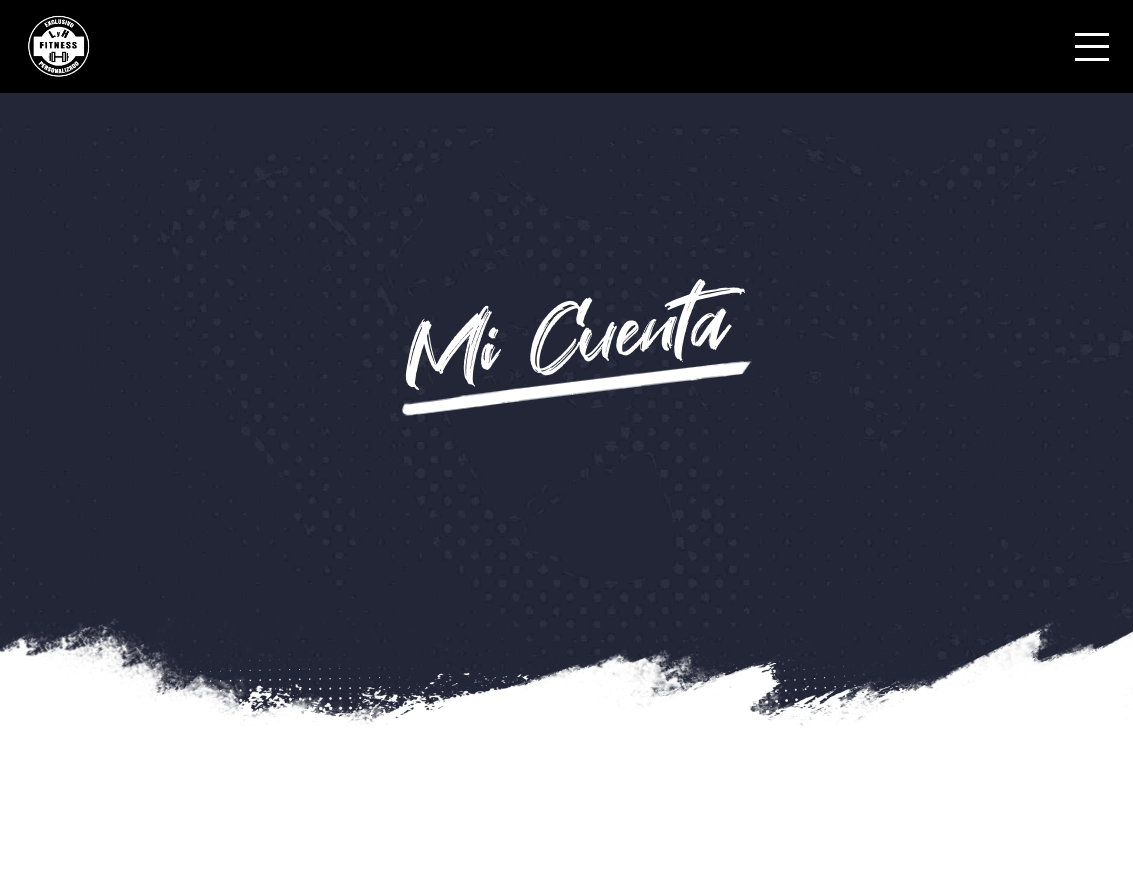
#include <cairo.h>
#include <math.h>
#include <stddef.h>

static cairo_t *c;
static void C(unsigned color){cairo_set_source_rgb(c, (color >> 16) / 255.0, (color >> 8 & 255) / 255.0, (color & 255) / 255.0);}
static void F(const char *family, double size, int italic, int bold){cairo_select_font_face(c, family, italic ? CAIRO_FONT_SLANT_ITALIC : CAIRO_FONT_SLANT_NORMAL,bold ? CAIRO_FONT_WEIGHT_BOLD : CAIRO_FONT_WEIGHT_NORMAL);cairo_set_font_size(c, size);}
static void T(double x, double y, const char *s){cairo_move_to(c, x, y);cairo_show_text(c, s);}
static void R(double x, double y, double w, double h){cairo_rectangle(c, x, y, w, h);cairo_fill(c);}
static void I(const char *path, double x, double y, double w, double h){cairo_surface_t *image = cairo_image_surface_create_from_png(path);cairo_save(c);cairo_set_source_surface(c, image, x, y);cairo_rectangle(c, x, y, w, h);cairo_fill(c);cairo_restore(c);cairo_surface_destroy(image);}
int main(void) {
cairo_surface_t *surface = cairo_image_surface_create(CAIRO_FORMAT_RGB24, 1133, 875);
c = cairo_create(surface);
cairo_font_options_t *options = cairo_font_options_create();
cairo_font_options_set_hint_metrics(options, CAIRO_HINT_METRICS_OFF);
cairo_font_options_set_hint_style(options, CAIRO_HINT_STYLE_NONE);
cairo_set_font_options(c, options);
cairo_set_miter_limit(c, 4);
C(0xffffff);
cairo_paint(c);
C(0x000000);
R(0,0,1133,93);
I("1.png",28,15,62,62);
C(0xffffff);
R(1075,33,34,3);
R(1075,45,34,3);
R(1075,58,34,3);
I("2.png",0,93,1133,634);
I("4.png",402,381,172,35);
I("3.png",570,359,182,36);
F("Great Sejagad",95,0,0);
cairo_save(c);
cairo_translate(c,407,388);
cairo_rotate(c,-6 * M_PI / 180);
T(0,0,"Mi Cuenta");
cairo_restore(c);
I("5.png",0,608,1133,119);
cairo_surface_write_to_png(surface, "o.png");
cairo_font_options_destroy(options);
cairo_destroy(c);
cairo_surface_destroy(surface);
return 0;
}
